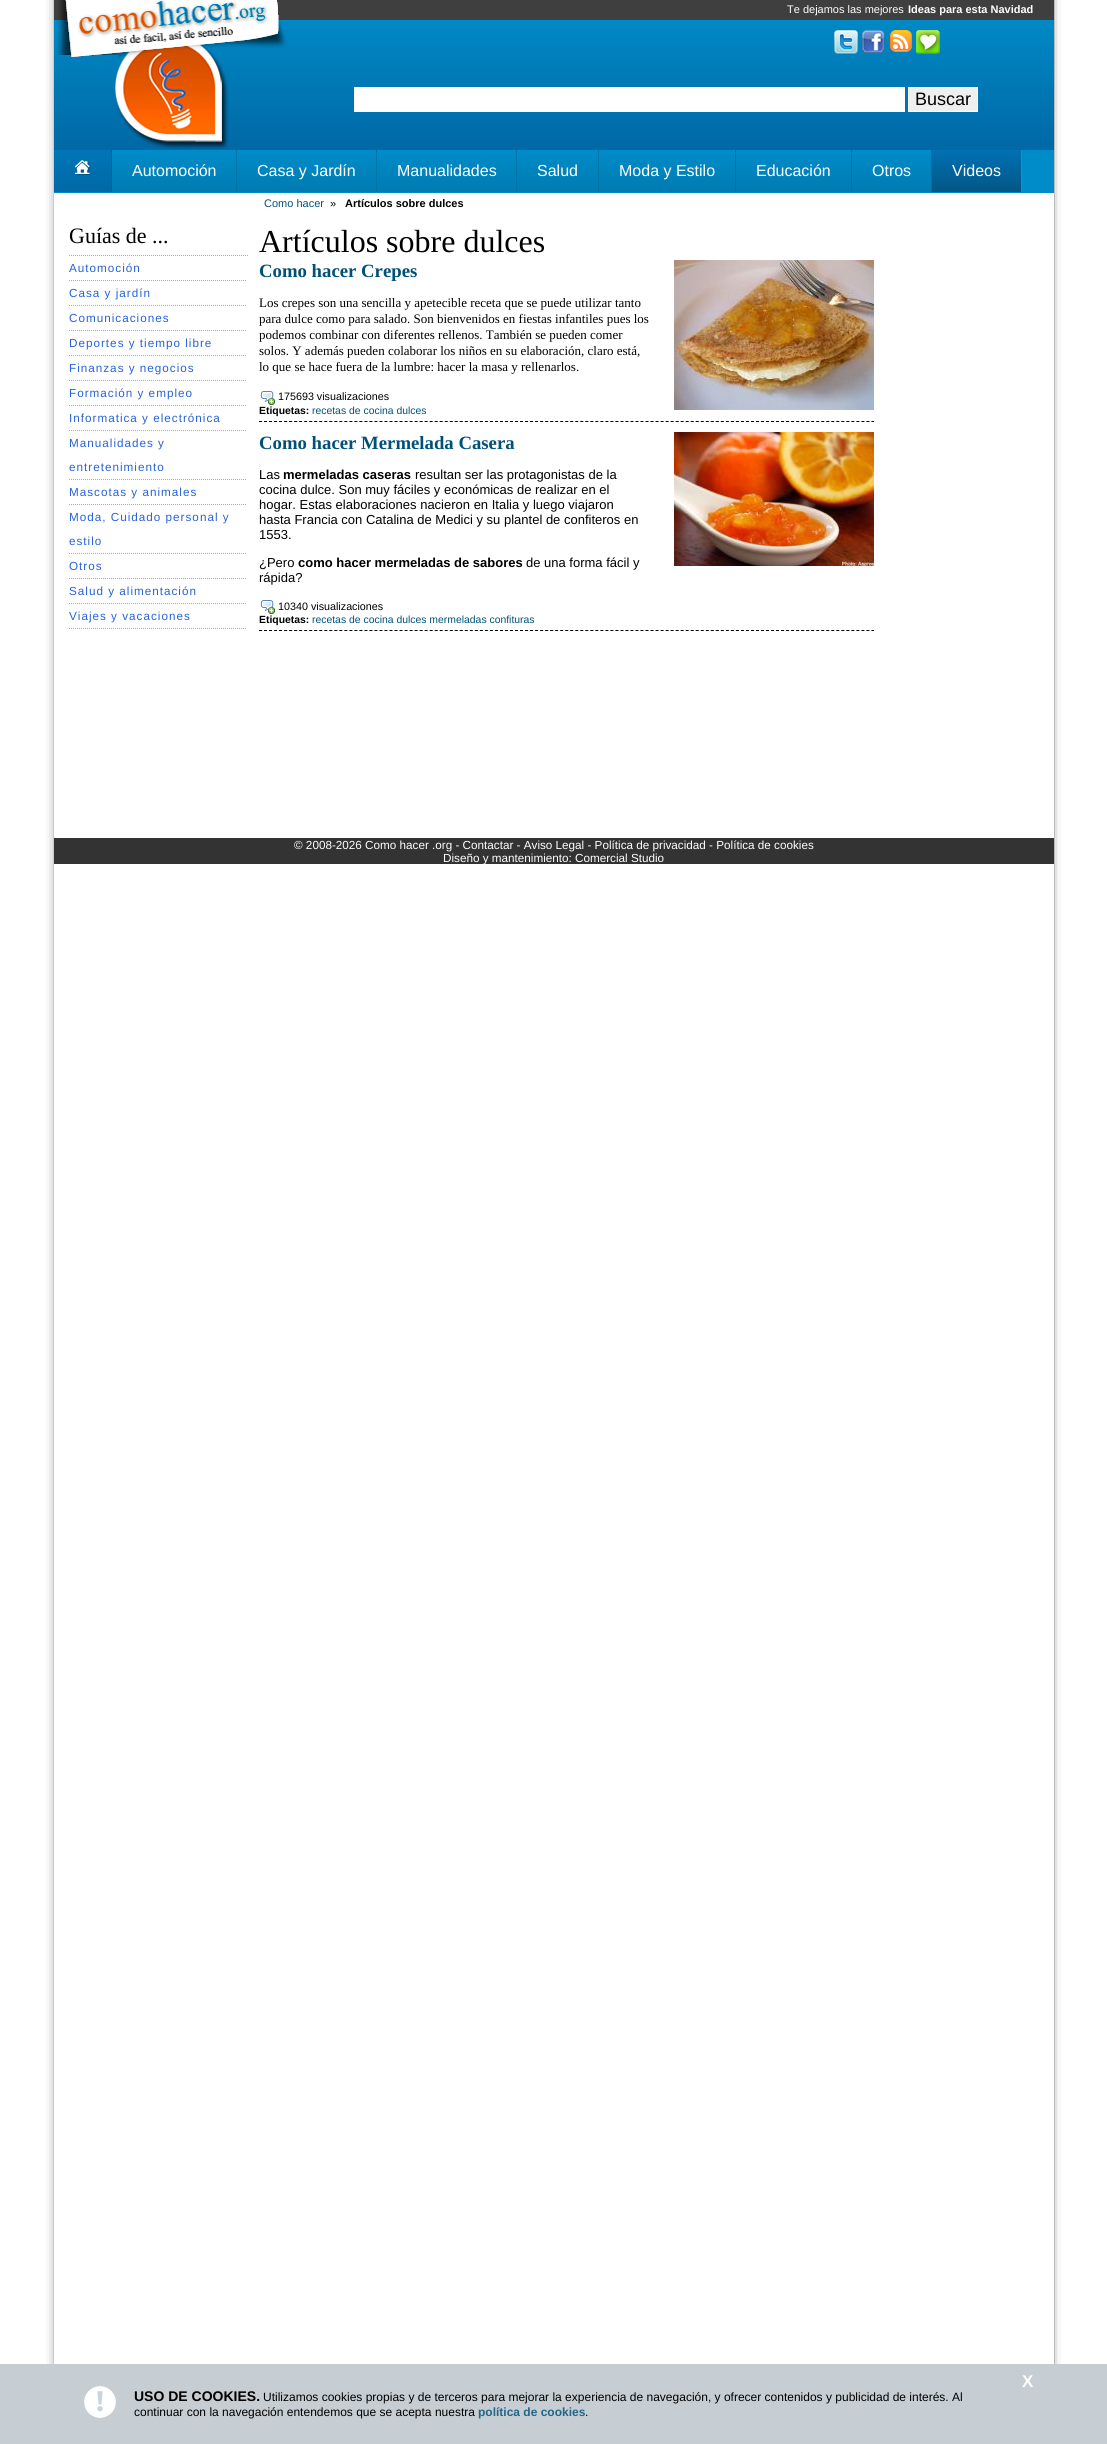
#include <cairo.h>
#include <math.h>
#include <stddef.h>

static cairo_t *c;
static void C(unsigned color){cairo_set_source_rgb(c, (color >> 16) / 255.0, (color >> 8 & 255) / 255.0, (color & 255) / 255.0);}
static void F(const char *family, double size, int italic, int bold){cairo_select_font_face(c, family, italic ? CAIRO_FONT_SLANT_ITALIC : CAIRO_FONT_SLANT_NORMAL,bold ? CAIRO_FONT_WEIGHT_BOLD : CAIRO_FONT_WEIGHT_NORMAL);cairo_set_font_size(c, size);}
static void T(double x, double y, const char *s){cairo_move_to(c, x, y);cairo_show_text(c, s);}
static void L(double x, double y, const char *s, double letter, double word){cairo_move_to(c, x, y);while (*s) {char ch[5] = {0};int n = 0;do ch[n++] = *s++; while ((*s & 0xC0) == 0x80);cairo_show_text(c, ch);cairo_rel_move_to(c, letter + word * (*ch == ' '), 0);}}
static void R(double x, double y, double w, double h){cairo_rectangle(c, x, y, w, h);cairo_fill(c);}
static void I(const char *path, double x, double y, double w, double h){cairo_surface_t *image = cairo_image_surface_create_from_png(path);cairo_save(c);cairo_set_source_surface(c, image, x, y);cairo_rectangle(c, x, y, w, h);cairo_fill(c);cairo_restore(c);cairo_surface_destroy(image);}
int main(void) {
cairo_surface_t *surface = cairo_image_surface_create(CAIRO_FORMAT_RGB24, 1107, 2444);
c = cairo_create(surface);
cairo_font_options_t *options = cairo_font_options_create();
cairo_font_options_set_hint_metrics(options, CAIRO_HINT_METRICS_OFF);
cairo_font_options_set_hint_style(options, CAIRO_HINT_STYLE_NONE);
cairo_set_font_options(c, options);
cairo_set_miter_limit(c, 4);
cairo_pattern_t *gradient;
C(0xffffff);
cairo_paint(c);
I("1.png",46,0,1015,2364);
C(0x3f3f3f);
R(54,0,1000,20);
F("Liberation Sans",11,0,0);
C(0xffffff);
T(787,13,"Te dejamos las mejores");
F("Liberation Sans",11,0,1);
T(908,13,"Ideas para esta Navidad");
gradient = cairo_pattern_create_linear(54,20,54,150);
cairo_pattern_add_color_stop_rgba(gradient,0,0,0.537,0.773,1);
cairo_pattern_add_color_stop_rgba(gradient,1,0,0.408,0.647,1);
cairo_set_source(c,gradient);
cairo_pattern_destroy(gradient);
R(54,20,1000,130);
I("7.png",115,44,114,105);
I("2.png",57,0,230,59);
I("3.png",834,30,24,24);
I("4.png",861,30,24,24);
I("5.png",890,30,22,22);
I("6.png",916,30,24,24);
C(0xffffff);
R(354,87,551,25);
C(0xefefef);
cairo_rectangle(c,908.5,87.5,69,24);
cairo_fill_preserve(c);
C(0xffffff);
cairo_set_line_width(c,1);
cairo_stroke(c);
F("Liberation Sans",18,0,0);
C(0x000000);
T(915,105,"Buscar");
C(0x008cc9);
R(54,150,1000,43);
gradient = cairo_pattern_create_linear(54,150,54,192);
cairo_pattern_add_color_stop_rgba(gradient,0,0,0.459,0.722,1);
cairo_pattern_add_color_stop_rgba(gradient,1,0,0.408,0.647,1);
cairo_set_source(c,gradient);
cairo_pattern_destroy(gradient);
R(54,150,57,42);
C(0x00639d);
R(111,150,1,42);
I("8.png",75,160,16,15);
gradient = cairo_pattern_create_linear(112,150,112,192);
cairo_pattern_add_color_stop_rgba(gradient,0,0,0.549,0.788,1);
cairo_pattern_add_color_stop_rgba(gradient,1,0,0.482,0.694,1);
cairo_set_source(c,gradient);
cairo_pattern_destroy(gradient);
R(112,154,124,38);
C(0x0073a6);
R(236,150,1,42);
F("Liberation Sans",16,0,0);
C(0xffffff);
T(132,176,"Automoción");
gradient = cairo_pattern_create_linear(237,150,237,192);
cairo_pattern_add_color_stop_rgba(gradient,0,0,0.549,0.788,1);
cairo_pattern_add_color_stop_rgba(gradient,1,0,0.482,0.694,1);
cairo_set_source(c,gradient);
cairo_pattern_destroy(gradient);
R(237,154,139,38);
C(0x0073a6);
R(376,150,1,42);
C(0xffffff);
T(257,176,"Casa y Jardín");
gradient = cairo_pattern_create_linear(377,150,377,192);
cairo_pattern_add_color_stop_rgba(gradient,0,0,0.549,0.788,1);
cairo_pattern_add_color_stop_rgba(gradient,1,0,0.482,0.694,1);
cairo_set_source(c,gradient);
cairo_pattern_destroy(gradient);
R(377,154,139,38);
C(0x0073a6);
R(516,150,1,42);
C(0xffffff);
T(397,176,"Manualidades");
gradient = cairo_pattern_create_linear(517,150,517,192);
cairo_pattern_add_color_stop_rgba(gradient,0,0,0.549,0.788,1);
cairo_pattern_add_color_stop_rgba(gradient,1,0,0.482,0.694,1);
cairo_set_source(c,gradient);
cairo_pattern_destroy(gradient);
R(517,154,81,38);
C(0x0073a6);
R(598,150,1,42);
C(0xffffff);
T(537,176,"Salud");
gradient = cairo_pattern_create_linear(599,150,599,192);
cairo_pattern_add_color_stop_rgba(gradient,0,0,0.549,0.788,1);
cairo_pattern_add_color_stop_rgba(gradient,1,0,0.482,0.694,1);
cairo_set_source(c,gradient);
cairo_pattern_destroy(gradient);
R(599,154,136,38);
C(0x0073a6);
R(735,150,1,42);
C(0xffffff);
T(619,176,"Moda y Estilo");
gradient = cairo_pattern_create_linear(736,150,736,192);
cairo_pattern_add_color_stop_rgba(gradient,0,0,0.549,0.788,1);
cairo_pattern_add_color_stop_rgba(gradient,1,0,0.482,0.694,1);
cairo_set_source(c,gradient);
cairo_pattern_destroy(gradient);
R(736,154,115,38);
C(0x0073a6);
R(851,150,1,42);
C(0xffffff);
T(756,176,"Educación");
gradient = cairo_pattern_create_linear(852,150,852,192);
cairo_pattern_add_color_stop_rgba(gradient,0,0,0.549,0.788,1);
cairo_pattern_add_color_stop_rgba(gradient,1,0,0.482,0.694,1);
cairo_set_source(c,gradient);
cairo_pattern_destroy(gradient);
R(852,154,79,38);
C(0x0073a6);
R(931,150,1,42);
C(0xffffff);
T(872,176,"Otros");
gradient = cairo_pattern_create_linear(932,150,932,192);
cairo_pattern_add_color_stop_rgba(gradient,0,0.004,0.443,0.702,1);
cairo_pattern_add_color_stop_rgba(gradient,1,0.008,0.337,0.522,1);
cairo_set_source(c,gradient);
cairo_pattern_destroy(gradient);
R(932,150,89,42);
C(0x4380a2);
R(1021,150,1,42);
C(0xffffff);
T(952,176,"Videos");
F("Liberation Sans",11,0,0);
C(0x005177);
T(264,207,"Como hacer");
C(0x000000);
T(330,207,"»");
F("Liberation Sans",11,0,1);
T(345,207,"Artículos sobre dulces");
cairo_new_path(c);
cairo_move_to(c,69,255.5);
cairo_line_to(c,249,255.5);
C(0xacacac);
cairo_set_dash(c,(double[]){1,1},2,0);
cairo_stroke(c);
F("Liberation Serif",22,0,0);
C(0x000000);
T(69,243,"Guías de ...");
cairo_new_path(c);
cairo_move_to(c,69,280.5);
cairo_line_to(c,247,280.5);
C(0xacacac);
cairo_stroke(c);
F("Liberation Sans",11.7,0,0);
C(0x2662da);
L(69,272,"Automoción",1,0);
cairo_new_path(c);
cairo_move_to(c,69,305.5);
cairo_line_to(c,247,305.5);
C(0xacacac);
cairo_stroke(c);
C(0x2662da);
L(69,297,"Casa y jardín",1,0);
cairo_new_path(c);
cairo_move_to(c,69,330.5);
cairo_line_to(c,247,330.5);
C(0xacacac);
cairo_stroke(c);
C(0x2662da);
L(69,322,"Comunicaciones",1,0);
cairo_new_path(c);
cairo_move_to(c,69,355.5);
cairo_line_to(c,247,355.5);
C(0xacacac);
cairo_stroke(c);
C(0x2662da);
L(69,347,"Deportes y tiempo libre",1,0);
cairo_new_path(c);
cairo_move_to(c,69,380.5);
cairo_line_to(c,247,380.5);
C(0xacacac);
cairo_stroke(c);
C(0x2662da);
L(69,372,"Finanzas y negocios",1,0);
cairo_new_path(c);
cairo_move_to(c,69,405.5);
cairo_line_to(c,247,405.5);
C(0xacacac);
cairo_stroke(c);
C(0x2662da);
L(69,397,"Formación y empleo",1,0);
cairo_new_path(c);
cairo_move_to(c,69,430.5);
cairo_line_to(c,247,430.5);
C(0xacacac);
cairo_stroke(c);
C(0x2662da);
L(69,422,"Informatica y electrónica",1,0);
cairo_new_path(c);
cairo_move_to(c,69,479.5);
cairo_line_to(c,247,479.5);
C(0xacacac);
cairo_stroke(c);
C(0x2662da);
L(69,447,"Manualidades y",1,0);
L(69,471,"entretenimiento",1,0);
cairo_new_path(c);
cairo_move_to(c,69,504.5);
cairo_line_to(c,247,504.5);
C(0xacacac);
cairo_stroke(c);
C(0x2662da);
L(69,496,"Mascotas y animales",1,0);
cairo_new_path(c);
cairo_move_to(c,69,553.5);
cairo_line_to(c,247,553.5);
C(0xacacac);
cairo_stroke(c);
C(0x2662da);
L(69,521,"Moda, Cuidado personal y",1,0);
L(69,545,"estilo",1,0);
cairo_new_path(c);
cairo_move_to(c,69,578.5);
cairo_line_to(c,247,578.5);
C(0xacacac);
cairo_stroke(c);
C(0x2662da);
L(69,570,"Otros",1,0);
cairo_new_path(c);
cairo_move_to(c,69,603.5);
cairo_line_to(c,247,603.5);
C(0xacacac);
cairo_stroke(c);
C(0x2662da);
L(69,595,"Salud y alimentación",1,0);
cairo_new_path(c);
cairo_move_to(c,69,628.5);
cairo_line_to(c,247,628.5);
C(0xacacac);
cairo_stroke(c);
C(0x2662da);
L(69,620,"Viajes y vacaciones",1,0);
F("Liberation Serif",32,0,0);
C(0x000000);
T(259,252,"Artículos sobre dulces");
cairo_new_path(c);
cairo_move_to(c,259,421.5);
cairo_line_to(c,874,421.5);
cairo_set_dash(c,(double[]){3,2.02},2,0);
cairo_stroke(c);
F("Liberation Serif",18.75,0,1);
C(0x005177);
T(259,277,"Como hacer Crepes");
F("Liberation Serif",13,0,0);
C(0x000000);
T(259,307,"Los crepes son una sencilla y apetecible receta que se puede utilizar tanto");
T(259,323,"para dulce como para salado. Son bienvenidos en fiestas infantiles pues los");
T(259,339,"podemos combinar con diferentes rellenos. También se pueden comer");
T(259,355,"solos. Y además pueden colaborar los niños en su elaboración, claro está,");
T(259,371,"lo que se hace fuera de la lumbre: hacer la masa y rellenarlos.");
I("9.png",260,391,15,14);
F("Liberation Sans",10.75,0,0);
T(278,400,"175693 visualizaciones");
F("Liberation Sans",10.4,0,1);
T(259,414,"Etiquetas:");
F("Liberation Sans",10.4,0,0);
C(0x005177);
T(312,414,"recetas de cocina dulces");
I("10.png",674,260,200,150);
cairo_new_path(c);
cairo_move_to(c,259,630.5);
cairo_line_to(c,874,630.5);
C(0x000000);
cairo_stroke(c);
F("Liberation Serif",18.75,0,1);
C(0x005177);
T(259,449,"Como hacer Mermelada Casera");
F("Liberation Sans",13,0,0);
C(0x000000);
T(259,479,"Las");
F("Liberation Sans",13,0,1);
T(283,479,"mermeladas caseras");
F("Liberation Sans",13,0,0);
T(415,479,"resultan ser las protagonistas de la");
T(259,494,"cocina dulce. Son muy fáciles y económicas de realizar en el");
T(259,509,"hogar. Estas elaboraciones nacieron en Italia y luego viajaron");
T(259,524,"hasta Francia con Catalina de Medici y su plantel de confiteros en");
T(259,539,"1553.");
T(259,567,"¿Pero");
F("Liberation Sans",13,0,1);
T(298,567,"como hacer mermeladas de sabores");
F("Liberation Sans",13,0,0);
T(526,567,"de una forma fácil y");
T(259,582,"rápida?");
I("9.png",260,600,15,14);
F("Liberation Sans",10.75,0,0);
T(278,610,"10340 visualizaciones");
F("Liberation Sans",10.4,0,1);
T(259,623,"Etiquetas:");
F("Liberation Sans",10.4,0,0);
C(0x005177);
T(312,623,"recetas de cocina dulces mermeladas confituras");
I("11.png",674,432,200,134);
C(0x333333);
R(54,838,1000,26);
F("Liberation Sans",11.7,0,0);
C(0xffffff);
T(294,849,"© 2008-2026 Como hacer .org - Contactar - Aviso Legal - Política de privacidad - Política de cookies");
T(443,862,"Diseño y mantenimiento: Comercial Studio");
C(0xc7ced3);
R(0,2364,1107,80);
F("Liberation Sans",17,0,1);
C(0xffffff);
T(1022,2387,"X");
I("12.png",84,2386,32,32);
F("Liberation Sans",14,0,1);
C(0x000000);
T(134,2401,"USO DE COOKIES.");
F("Liberation Sans",12,0,0);
T(263,2401,"Utilizamos cookies propias y de terceros para mejorar la experiencia de navegación, y ofrecer contenidos y publicidad de interés. Al");
T(134,2416,"continuar con la navegación entendemos que se acepta nuestra");
F("Liberation Sans",12,0,1);
C(0x226688);
T(478,2416,"política de cookies");
F("Liberation Sans",12,0,0);
C(0x000000);
T(585,2416,".");
cairo_surface_write_to_png(surface, "o.png");
cairo_font_options_destroy(options);
cairo_destroy(c);
cairo_surface_destroy(surface);
return 0;
}
